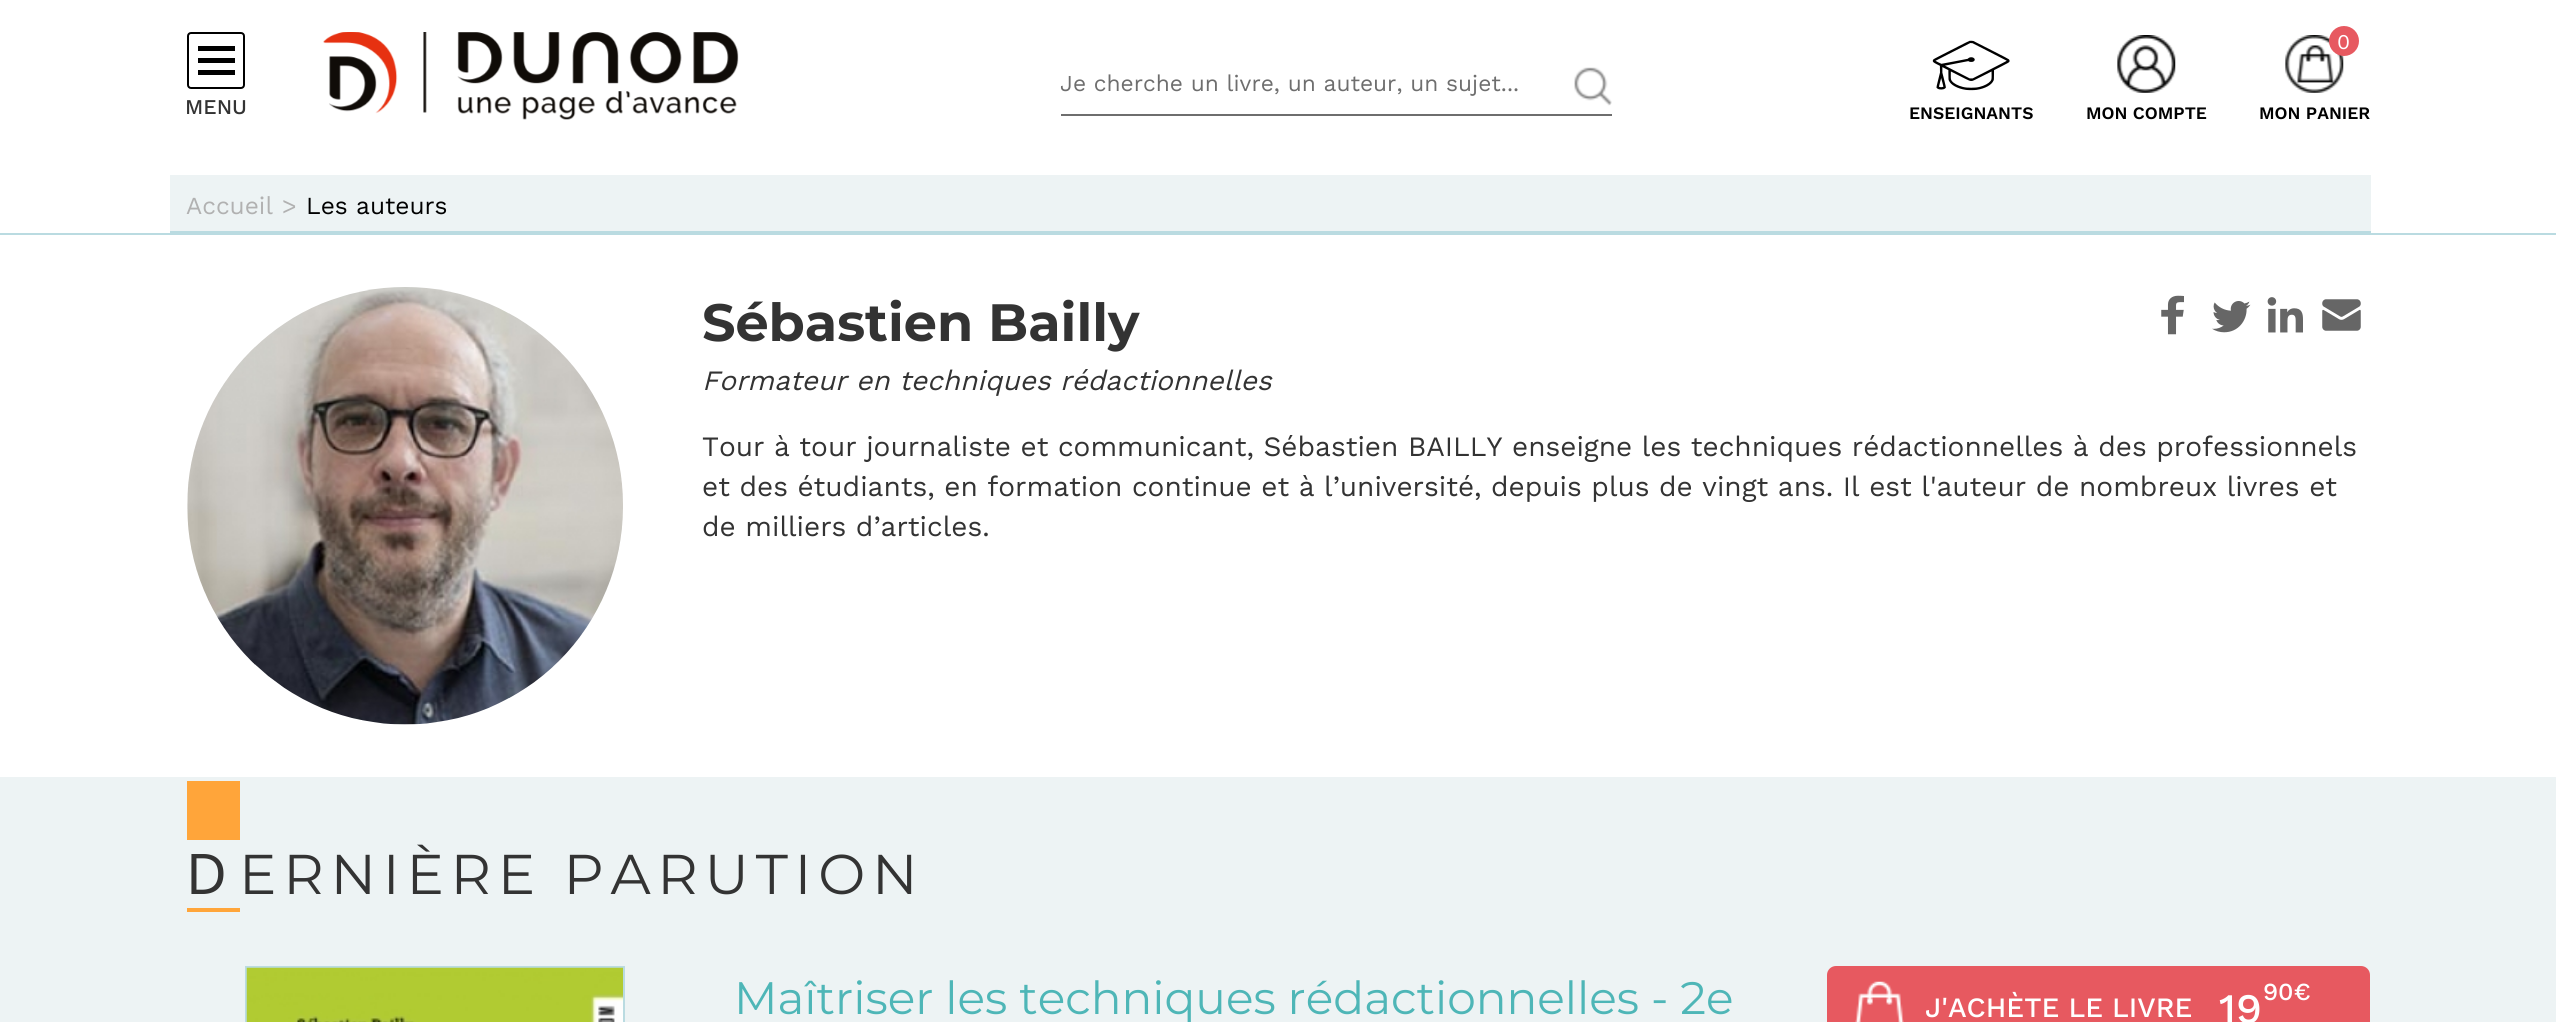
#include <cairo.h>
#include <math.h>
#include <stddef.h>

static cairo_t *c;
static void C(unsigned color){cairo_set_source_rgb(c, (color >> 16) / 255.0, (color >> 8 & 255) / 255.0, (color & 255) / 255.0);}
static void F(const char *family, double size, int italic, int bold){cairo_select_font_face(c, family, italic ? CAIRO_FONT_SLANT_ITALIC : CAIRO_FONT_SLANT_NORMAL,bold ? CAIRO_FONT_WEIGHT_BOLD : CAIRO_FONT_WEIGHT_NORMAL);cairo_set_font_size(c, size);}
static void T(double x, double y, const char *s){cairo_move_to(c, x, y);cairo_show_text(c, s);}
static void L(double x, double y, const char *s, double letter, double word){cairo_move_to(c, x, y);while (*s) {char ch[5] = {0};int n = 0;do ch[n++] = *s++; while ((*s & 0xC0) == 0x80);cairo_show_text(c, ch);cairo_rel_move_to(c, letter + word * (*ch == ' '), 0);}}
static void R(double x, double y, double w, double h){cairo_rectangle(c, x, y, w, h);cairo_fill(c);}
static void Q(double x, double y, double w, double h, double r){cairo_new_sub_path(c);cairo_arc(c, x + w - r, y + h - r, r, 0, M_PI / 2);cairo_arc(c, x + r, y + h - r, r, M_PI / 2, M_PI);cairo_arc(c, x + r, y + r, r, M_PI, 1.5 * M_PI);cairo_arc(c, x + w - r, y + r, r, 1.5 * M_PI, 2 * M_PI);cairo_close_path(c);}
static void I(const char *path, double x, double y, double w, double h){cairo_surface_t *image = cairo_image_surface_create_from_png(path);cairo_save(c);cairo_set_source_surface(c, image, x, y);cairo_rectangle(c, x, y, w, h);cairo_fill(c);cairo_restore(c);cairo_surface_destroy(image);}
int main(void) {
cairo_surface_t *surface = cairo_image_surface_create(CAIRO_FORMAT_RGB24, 2556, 1022);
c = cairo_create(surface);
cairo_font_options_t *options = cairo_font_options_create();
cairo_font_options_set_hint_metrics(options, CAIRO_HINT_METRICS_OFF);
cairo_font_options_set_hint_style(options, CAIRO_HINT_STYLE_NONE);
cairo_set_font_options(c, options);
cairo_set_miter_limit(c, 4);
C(0xffffff);
cairo_paint(c);
Q(188,33,56,55,3);
C(0x000000);
cairo_stroke(c);
R(198,46,37,5);
R(198,58,37,5);
R(198,70,37,5);
F("Work Sans Medium",21,0,0);
C(0x333333);
T(185,114,"MENU");
I("1.png",323,32,416,88);
C(0x6e6e6e);
R(1061,114,551,2);
F("Work Sans",22.75,0,0);
T(1060,91,"Je cherche un livre, un auteur, un sujet...");
I("2.png",1574,67,38,39);
I("3.png",2285,35,59,58);
C(0xe75960);
cairo_arc(c,2344,41,14,0,2 * M_PI);
cairo_fill_preserve(c);
cairo_stroke(c);
F("Work Sans",21,0,0);
C(0xffffff);
T(2337,49,"0");
F("Work Sans SemiBold",17.5,0,0);
C(0x010101);
T(2259,119,"MON PANIER");
I("4.png",1932,40,78,51);
T(1909,119,"ENSEIGNANTS");
I("5.png",2117,35,59,58);
T(2086,119,"MON COMPTE");
C(0xedf3f4);
R(170,175,2201,56);
C(0xbadbe1);
R(170,231,2201,2);
F("Work Sans",24.5,0,0);
C(0xb1b1b1);
T(186,214,"Accueil");
T(282,214,">");
C(0x010101);
T(306,214,"Les auteurs");
C(0xbadbe1);
R(0,233,2556,2);
I("6.png",187,287,436,438);
F("Montserrat",52.5,0,1);
C(0x333333);
T(702,341,"Sébastien Bailly");
I("7.png",2161,295,23,40);
I("8.png",2212,301,39,32);
I("9.png",2267,297,36,36);
I("10.png",2322,299,39,32);
F("Work Sans",28,1,0);
T(702,390,"Formateur en techniques rédactionnelles");
F("Work Sans",28,0,0);
T(702,456,"Tour à tour journaliste et communicant, Sébastien BAILLY enseigne les techniques rédactionnelles à des professionnels");
T(702,496,"et des étudiants, en formation continue et à l’université, depuis plus de vingt ans. Il est l'auteur de nombreux livres et");
T(702,536,"de milliers d’articles.");
C(0xedf3f4);
R(0,777,2556,245);
F("Noto Sans",56,0,0);
C(0x333333);
L(186,894,"D",6.75,0);
C(0xffa53a);
R(187,781,53,59);
R(187,908,53,4);
F("Montserrat",56,0,0);
C(0x333333);
L(239,894,"ERNIÈRE PARUTION",6.75,0);
cairo_rectangle(c,246,967,378,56);
C(0xbadbe1);
cairo_stroke(c);
I("11.png",246,967,377,55);
F("Montserrat",45.5,0,0);
C(0x4eb6b7);
T(734,1014,"Maîtriser les techniques rédactionnelles - 2e");
C(0xe75960);
Q(1827,966,543,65,9);
cairo_fill(c);
I("12.png",1855,981,49,41);
F("Work Sans Medium",28,0,0);
C(0xffffff);
T(1925,1017,"J'ACHÈTE LE LIVRE");
F("Work Sans Medium",24.5,0,0);
T(2263,1000,"90€");
F("Work Sans Medium",42,0,0);
T(2219,1023,"19");
cairo_surface_write_to_png(surface, "o.png");
cairo_font_options_destroy(options);
cairo_destroy(c);
cairo_surface_destroy(surface);
return 0;
}
